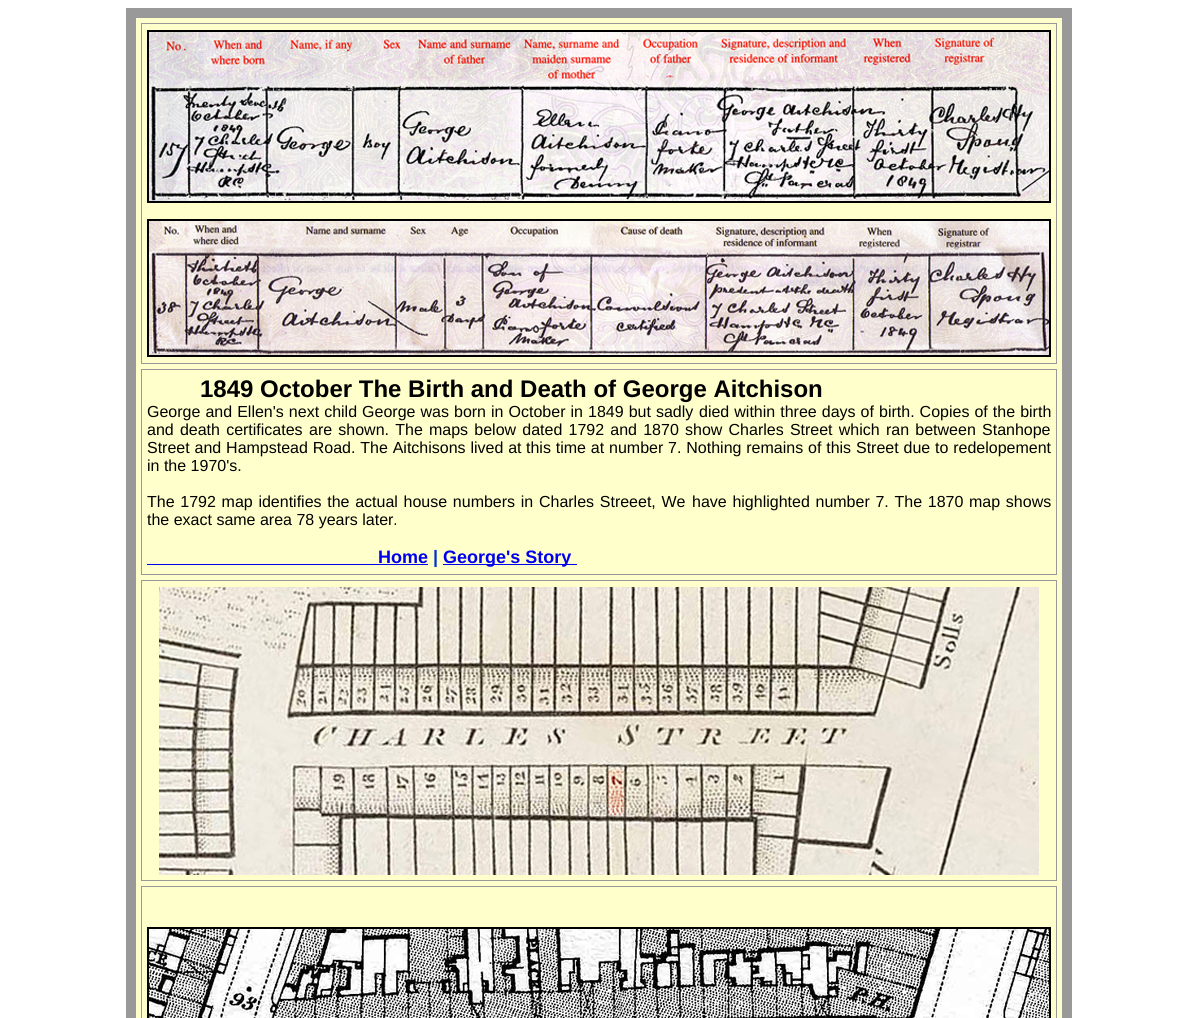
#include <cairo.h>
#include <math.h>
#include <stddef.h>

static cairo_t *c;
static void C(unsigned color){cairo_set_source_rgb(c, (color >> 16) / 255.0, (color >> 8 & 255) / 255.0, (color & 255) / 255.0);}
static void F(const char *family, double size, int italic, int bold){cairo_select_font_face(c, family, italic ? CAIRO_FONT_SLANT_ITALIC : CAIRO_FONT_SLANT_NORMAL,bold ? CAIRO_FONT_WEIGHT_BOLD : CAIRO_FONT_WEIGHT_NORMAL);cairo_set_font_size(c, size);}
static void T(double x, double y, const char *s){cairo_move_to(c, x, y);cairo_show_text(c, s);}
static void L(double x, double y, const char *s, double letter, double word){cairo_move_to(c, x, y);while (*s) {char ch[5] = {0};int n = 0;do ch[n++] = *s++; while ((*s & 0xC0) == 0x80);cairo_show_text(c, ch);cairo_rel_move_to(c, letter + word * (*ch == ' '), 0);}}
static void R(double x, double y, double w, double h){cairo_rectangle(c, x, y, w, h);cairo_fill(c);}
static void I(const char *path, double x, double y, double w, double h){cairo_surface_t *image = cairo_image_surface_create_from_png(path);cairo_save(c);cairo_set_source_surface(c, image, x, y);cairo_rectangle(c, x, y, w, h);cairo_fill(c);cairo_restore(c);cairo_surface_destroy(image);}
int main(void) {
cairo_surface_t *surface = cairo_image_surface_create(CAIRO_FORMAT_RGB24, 1198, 1018);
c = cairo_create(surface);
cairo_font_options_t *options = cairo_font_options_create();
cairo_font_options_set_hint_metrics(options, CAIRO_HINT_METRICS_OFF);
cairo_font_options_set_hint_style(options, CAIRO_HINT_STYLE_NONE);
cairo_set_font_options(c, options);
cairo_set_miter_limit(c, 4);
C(0xffffff);
cairo_paint(c);
C(0xffffcc);
cairo_rectangle(c,131,13,936,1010);
cairo_fill_preserve(c);
C(0x999999);
cairo_set_line_width(c,10);
cairo_stroke(c);
cairo_rectangle(c,141.5,23.5,915,340);
cairo_set_line_width(c,1);
cairo_stroke(c);
cairo_rectangle(c,148,31,902,171);
C(0x000000);
cairo_set_line_width(c,2);
cairo_stroke(c);
I("1.png",149,32,900,169);
cairo_rectangle(c,148,220,902,136);
cairo_stroke(c);
I("2.png",149,221,900,134);
cairo_rectangle(c,141.5,369.5,915,205);
C(0x999999);
cairo_set_line_width(c,1);
cairo_stroke(c);
F("Liberation Sans",24,0,1);
C(0x000000);
T(200,397,"1849 October The Birth and Death of George Aitchison");
F("Liberation Sans",16,0,0);
L(147,417,"George and Ellen's next child George was born in October in 1849 but sadly",0,.6);
L(699,417,"died within three days of birth. Copies of the birth",0,.6);
L(147,435,"and death certificates",0,1.75);
L(309,435,"are shown. The maps below dated 1792 and 1870 show Charles Street which",0,1.75);
L(886,435,"ran between Stanhope",0,1.75);
L(147,453,"Street and Hampstead Road. The Aitchisons lived at",0,.4);
L(526,453,"this time at number 7. Nothing remains of this Street due to redelopement",0,.4);
T(147,471,"in the 1970's.");
L(147,507,"The 1792 map identifies the actual house numbers in Charles Streeet, We",0,1.25);
L(692,507,"have highlighted number 7. The 1870 map shows",0,1.25);
T(147,525,"the exact same area 78 years later.");
F("Liberation Sans",18,0,1);
C(0x0000ee);
T(378,563,"Home");
R(147,564,281,1);
C(0x0033cc);
T(433,563,"|");
C(0x0000ee);
R(443,564,134,1);
T(443,563,"George's Story");
cairo_rectangle(c,141.5,580.5,915,300);
C(0x999999);
cairo_stroke(c);
I("3.png",159,587,880,288);
cairo_rectangle(c,141.5,886.5,915,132);
cairo_stroke(c);
cairo_rectangle(c,148,928,902,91);
C(0x000000);
cairo_set_line_width(c,2);
cairo_stroke(c);
I("4.png",149,929,900,89);
cairo_surface_write_to_png(surface, "o.png");
cairo_font_options_destroy(options);
cairo_destroy(c);
cairo_surface_destroy(surface);
return 0;
}
